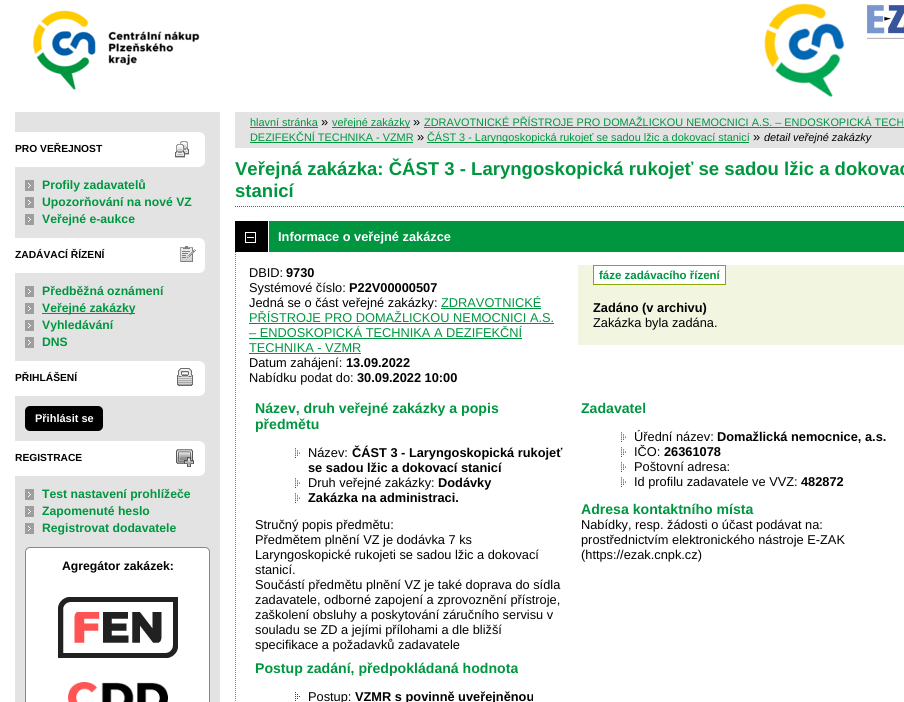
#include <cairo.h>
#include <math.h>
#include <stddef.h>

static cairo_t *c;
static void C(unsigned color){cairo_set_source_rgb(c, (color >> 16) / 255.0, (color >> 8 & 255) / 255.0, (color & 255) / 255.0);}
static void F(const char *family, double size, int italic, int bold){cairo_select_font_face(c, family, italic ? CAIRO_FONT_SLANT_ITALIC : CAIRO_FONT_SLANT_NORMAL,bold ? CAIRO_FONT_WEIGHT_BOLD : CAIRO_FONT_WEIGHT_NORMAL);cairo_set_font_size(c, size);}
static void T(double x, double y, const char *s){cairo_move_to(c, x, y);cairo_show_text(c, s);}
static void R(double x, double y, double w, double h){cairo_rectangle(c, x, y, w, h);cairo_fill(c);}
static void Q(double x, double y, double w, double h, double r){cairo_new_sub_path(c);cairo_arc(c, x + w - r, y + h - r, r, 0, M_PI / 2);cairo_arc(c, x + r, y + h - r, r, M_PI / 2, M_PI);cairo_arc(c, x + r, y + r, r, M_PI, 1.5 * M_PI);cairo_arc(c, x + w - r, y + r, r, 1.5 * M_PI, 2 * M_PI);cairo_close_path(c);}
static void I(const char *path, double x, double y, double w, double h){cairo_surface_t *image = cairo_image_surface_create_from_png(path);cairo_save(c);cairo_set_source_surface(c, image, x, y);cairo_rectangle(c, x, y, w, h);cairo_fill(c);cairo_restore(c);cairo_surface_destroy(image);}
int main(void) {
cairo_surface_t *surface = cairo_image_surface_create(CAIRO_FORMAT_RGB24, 904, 702);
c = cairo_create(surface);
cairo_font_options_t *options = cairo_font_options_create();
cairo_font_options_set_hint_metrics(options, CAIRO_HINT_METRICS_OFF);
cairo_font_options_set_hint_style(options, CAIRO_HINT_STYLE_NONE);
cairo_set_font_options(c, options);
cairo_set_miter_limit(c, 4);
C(0xffffff);
cairo_paint(c);
I("1.png",0,0,904,97);
I("2.png",0,2,228,88);
I("3.png",867,5,37,34);
C(0xe3e3e3);
R(15,112,205,590);
I("4.png",15,132,190,35);
F("Liberation Sans",10.25,0,1);
C(0x000000);
T(15,152,"PRO VEŘEJNOST");
I("5.png",25,180,9,11);
F("Liberation Sans",12.2,0,1);
C(0x009640);
T(42,189,"Profily zadavatelů");
I("5.png",25,197,9,11);
T(42,206,"Upozorňování na nové VZ");
I("5.png",25,214,9,11);
T(42,223,"Veřejné e-aukce");
I("6.png",15,238,190,35);
F("Liberation Sans",10.25,0,1);
C(0x000000);
T(15,258,"ZADÁVACÍ ŘÍZENÍ");
I("5.png",25,286,9,11);
F("Liberation Sans",12.2,0,1);
C(0x009640);
T(42,295,"Předběžná oznámení");
I("5.png",25,303,9,11);
R(42,313,93,1);
T(42,312,"Veřejné zakázky");
I("5.png",25,320,9,11);
T(42,329,"Vyhledávání");
I("5.png",25,337,9,11);
T(42,346,"DNS");
I("7.png",15,361,190,35);
F("Liberation Sans",10.25,0,1);
C(0x000000);
T(15,381,"PŘIHLÁŠENÍ");
Q(25,406,78,25,5);
cairo_fill(c);
F("Liberation Sans",11,0,1);
C(0xffffff);
T(35,422,"Přihlásit se");
I("8.png",15,441,190,35);
F("Liberation Sans",10.25,0,1);
C(0x000000);
T(15,461,"REGISTRACE");
I("5.png",25,489,9,11);
F("Liberation Sans",12.2,0,1);
C(0x009640);
T(42,498,"Test nastavení prohlížeče");
I("5.png",25,506,9,11);
T(42,515,"Zapomenuté heslo");
I("5.png",25,523,9,11);
T(42,532,"Registrovat dodavatele");
C(0xffffff);
Q(25.5,547.5,184,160,4.5);
cairo_fill_preserve(c);
C(0x888888);
cairo_set_line_width(c,1);
cairo_stroke(c);
C(0x000000);
T(62,570,"Agregátor zakázek:");
I("9.png",58,597,120,61);
I("10.png",68,682,100,20);
C(0xe3e3e3);
R(235,112,669,36);
F("Liberation Sans",10.9,0,0);
C(0x009640);
T(250,126,"hlavní stránka");
R(250,127,68,1);
F("Liberation Sans",12.8,0,0);
C(0x000000);
T(321,126,"»");
C(0x009640);
R(332,127,78,1);
F("Liberation Sans",10.9,0,0);
T(332,126,"veřejné zakázky");
F("Liberation Sans",12.8,0,0);
C(0x000000);
T(413,126,"»");
F("Liberation Sans",10.9,0,0);
C(0x009640);
T(424,126,"ZDRAVOTNICKÉ PŘÍSTROJE PRO DOMAŽLICKOU NEMOCNICI A.S. – ENDOSKOPICKÁ TECH");
R(424,127,480,1);
T(250,141,"DEZIFEKČNÍ TECHNIKA - VZMR");
R(250,142,163,1);
F("Liberation Sans",12.8,0,0);
C(0x000000);
T(417,141,"»");
C(0x009640);
R(427,142,322,1);
F("Liberation Sans",10.9,0,0);
T(427,141,"ČÁST 3 - Laryngoskopická rukojeť se sadou lžic a dokovací stanicí");
F("Liberation Sans",12.8,0,0);
C(0x000000);
T(753,141,"»");
F("Liberation Sans",10.9,1,0);
T(764,141,"detail veřejné zakázky");
cairo_new_path(c);
cairo_move_to(c,235,206.5);
cairo_line_to(c,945,206.5);
C(0x009640);
cairo_set_dash(c,(double[]){1,1},2,0);
cairo_stroke(c);
F("Liberation Sans",18.55,0,1);
T(235,175,"Veřejná zakázka: ČÁST 3 - Laryngoskopická rukojeť se sadou lžic a dokovac");
T(235,197,"stanicí");
I("11.png",235,221,669,31);
I("12.png",245,232,11,11);
F("Liberation Sans",12.8,0,1);
C(0xffffff);
T(278,241,"Informace o veřejné zakázce");
cairo_new_path(c);
cairo_move_to(c,235.5,252);
cairo_line_to(c,235.5,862);
C(0x7f7f7f);
cairo_stroke(c);
F("Liberation Sans",12.8,0,0);
C(0x000000);
T(249,277,"DBID:");
F("Liberation Sans",12.8,0,1);
T(286,277,"9730");
C(0xf2f5e0);
R(578,265,326,80);
C(0xffffff);
cairo_rectangle(c,593.5,265.5,132,19);
cairo_fill_preserve(c);
C(0x8ba600);
cairo_set_dash(c,NULL,0,0);
cairo_stroke(c);
F("Liberation Sans",11.5,0,1);
C(0x009640);
T(599,279,"fáze zadávacího řízení");
F("Liberation Sans",12.8,0,1);
C(0x000000);
T(593,312,"Zadáno (v archivu)");
F("Liberation Sans",12.8,0,0);
T(593,327,"Zakázka byla zadána.");
T(249,292,"Systémové číslo:");
F("Liberation Sans",12.8,0,1);
T(349,292,"P22V00000507");
F("Liberation Sans",12.8,0,0);
T(249,307,"Jedná se o část veřejné zakázky:");
C(0x009640);
T(441,307,"ZDRAVOTNICKÉ");
R(441,308,100,1);
T(249,322,"PŘÍSTROJE PRO DOMAŽLICKOU NEMOCNICI A.S.");
R(249,323,305,1);
T(249,337,"– ENDOSKOPICKÁ TECHNIKA A DEZIFEKČNÍ");
R(249,338,273,1);
T(249,352,"TECHNIKA - VZMR");
R(249,353,112,1);
C(0x000000);
T(249,367,"Datum zahájení:");
F("Liberation Sans",12.8,0,1);
T(346,367,"13.09.2022");
F("Liberation Sans",12.8,0,0);
T(249,382,"Nabídku podat do:");
F("Liberation Sans",12.8,0,1);
T(357,382,"30.09.2022 10:00");
F("Liberation Sans",14.1,0,1);
C(0x009640);
T(255,413,"Název, druh veřejné zakázky a popis");
T(255,429,"předmětu");
I("13.png",295,448,5,10);
F("Liberation Sans",12.8,0,0);
C(0x000000);
T(308,457,"Název:");
F("Liberation Sans",12.8,0,1);
T(352,457,"ČÁST 3 - Laryngoskopická rukojeť");
T(308,472,"se sadou lžic a dokovací stanicí");
I("13.png",295,478,5,10);
F("Liberation Sans",12.8,0,0);
T(308,487,"Druh veřejné zakázky:");
F("Liberation Sans",12.8,0,1);
T(438,487,"Dodávky");
I("13.png",295,493,5,10);
T(308,502,"Zakázka na administraci.");
F("Liberation Sans",12.8,0,0);
T(255,529,"Stručný popis předmětu:");
T(255,544,"Předmětem plnění VZ je dodávka 7 ks");
T(255,559,"Laryngoskopické rukojeti se sadou lžic a dokovací");
T(255,574,"stanicí.");
T(255,589,"Součástí předmětu plnění VZ je také doprava do sídla");
T(255,604,"zadavatele, odborné zapojení a zprovoznění přístroje,");
T(255,619,"zaškolení obsluhy a poskytování záručního servisu v");
T(255,634,"souladu se ZD a jejími přílohami a dle bližší");
T(255,649,"specifikace a požadavků zadavatele");
F("Liberation Sans",14.1,0,1);
C(0x009640);
T(255,673,"Postup zadání, předpokládaná hodnota");
I("14.png",295,692,5,9);
F("Liberation Sans",12.8,0,0);
C(0x000000);
T(308,701,"Postup:");
F("Liberation Sans",12.8,0,1);
T(355,701,"VZMR s povinně uveřejněnou");
F("Liberation Sans",14.1,0,1);
C(0x009640);
T(581,413,"Zadavatel");
I("13.png",621,432,5,10);
F("Liberation Sans",12.8,0,0);
C(0x000000);
T(634,441,"Úřední název:");
F("Liberation Sans",12.8,0,1);
T(717,441,"Domažlická nemocnice, a.s.");
I("13.png",621,447,5,10);
F("Liberation Sans",12.8,0,0);
T(634,456,"IČO:");
F("Liberation Sans",12.8,0,1);
T(664,456,"26361078");
I("13.png",621,462,5,10);
F("Liberation Sans",12.8,0,0);
T(634,471,"Poštovní adresa:");
I("13.png",621,477,5,10);
T(634,486,"Id profilu zadavatele ve VVZ:");
F("Liberation Sans",12.8,0,1);
T(801,486,"482872");
F("Liberation Sans",14.1,0,1);
C(0x009640);
T(581,514,"Adresa kontaktního místa");
F("Liberation Sans",12.8,0,0);
C(0x000000);
T(581,529,"Nabídky, resp. žádosti o účast podávat na:");
T(581,544,"prostřednictvím elektronického nástroje E-ZAK");
T(581,559,"(https://ezak.cnpk.cz)");
cairo_surface_write_to_png(surface, "o.png");
cairo_font_options_destroy(options);
cairo_destroy(c);
cairo_surface_destroy(surface);
return 0;
}
